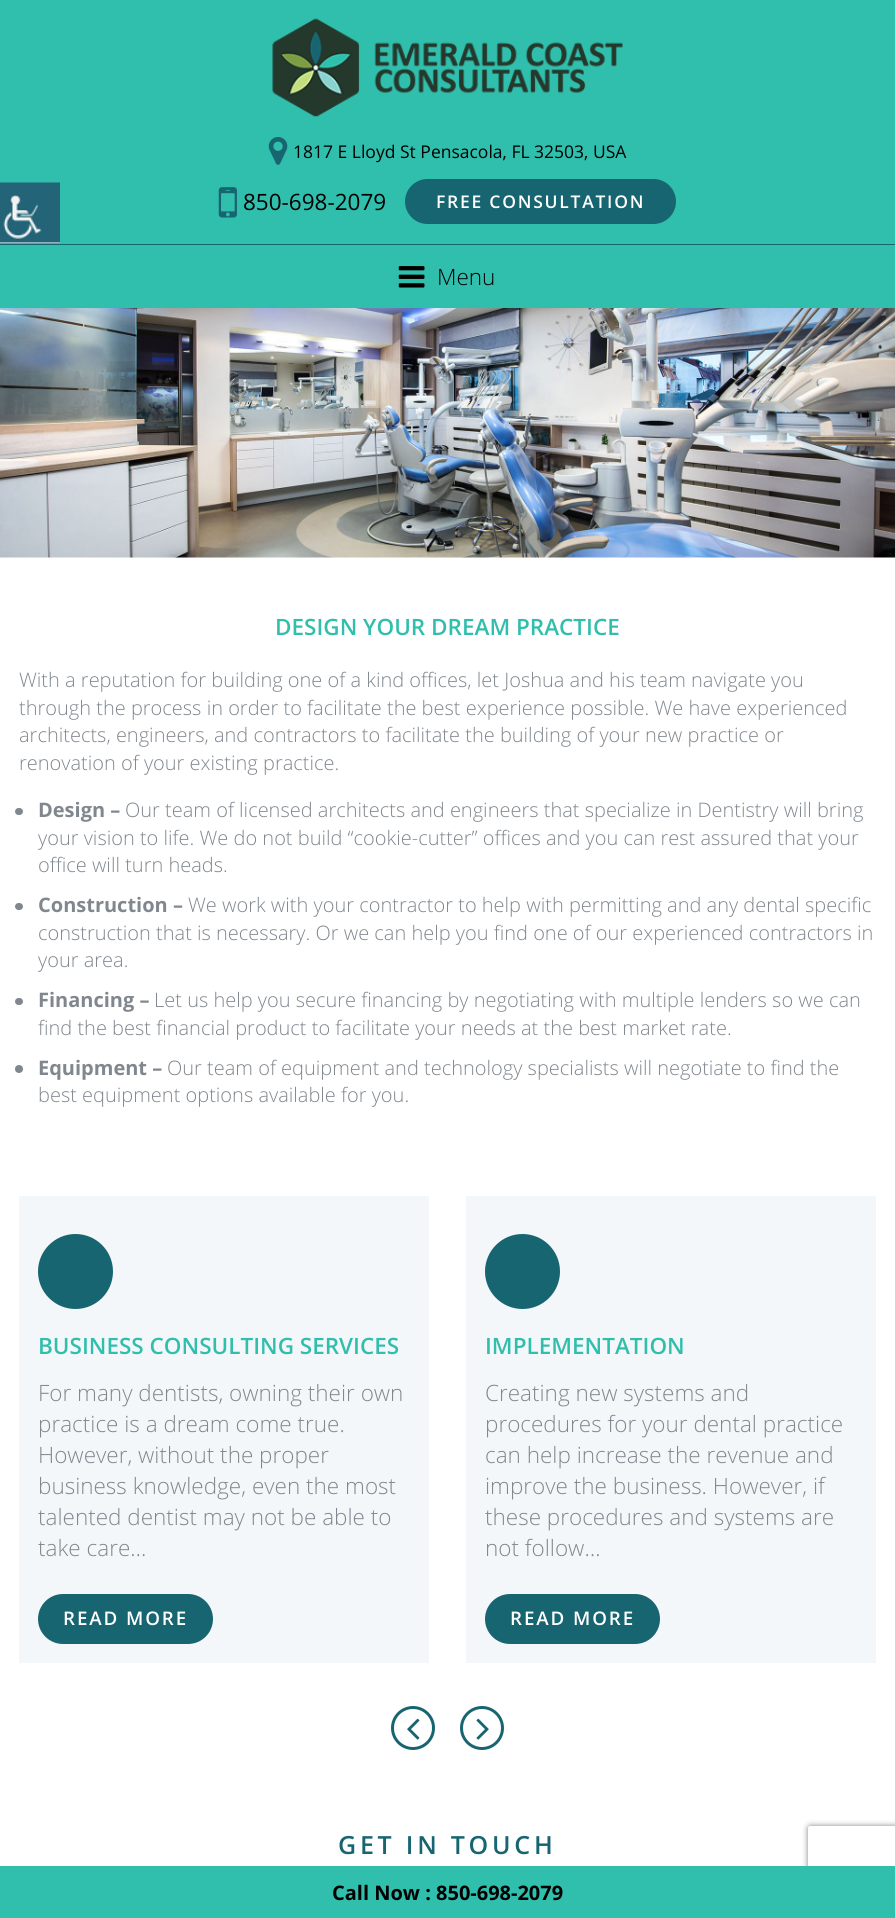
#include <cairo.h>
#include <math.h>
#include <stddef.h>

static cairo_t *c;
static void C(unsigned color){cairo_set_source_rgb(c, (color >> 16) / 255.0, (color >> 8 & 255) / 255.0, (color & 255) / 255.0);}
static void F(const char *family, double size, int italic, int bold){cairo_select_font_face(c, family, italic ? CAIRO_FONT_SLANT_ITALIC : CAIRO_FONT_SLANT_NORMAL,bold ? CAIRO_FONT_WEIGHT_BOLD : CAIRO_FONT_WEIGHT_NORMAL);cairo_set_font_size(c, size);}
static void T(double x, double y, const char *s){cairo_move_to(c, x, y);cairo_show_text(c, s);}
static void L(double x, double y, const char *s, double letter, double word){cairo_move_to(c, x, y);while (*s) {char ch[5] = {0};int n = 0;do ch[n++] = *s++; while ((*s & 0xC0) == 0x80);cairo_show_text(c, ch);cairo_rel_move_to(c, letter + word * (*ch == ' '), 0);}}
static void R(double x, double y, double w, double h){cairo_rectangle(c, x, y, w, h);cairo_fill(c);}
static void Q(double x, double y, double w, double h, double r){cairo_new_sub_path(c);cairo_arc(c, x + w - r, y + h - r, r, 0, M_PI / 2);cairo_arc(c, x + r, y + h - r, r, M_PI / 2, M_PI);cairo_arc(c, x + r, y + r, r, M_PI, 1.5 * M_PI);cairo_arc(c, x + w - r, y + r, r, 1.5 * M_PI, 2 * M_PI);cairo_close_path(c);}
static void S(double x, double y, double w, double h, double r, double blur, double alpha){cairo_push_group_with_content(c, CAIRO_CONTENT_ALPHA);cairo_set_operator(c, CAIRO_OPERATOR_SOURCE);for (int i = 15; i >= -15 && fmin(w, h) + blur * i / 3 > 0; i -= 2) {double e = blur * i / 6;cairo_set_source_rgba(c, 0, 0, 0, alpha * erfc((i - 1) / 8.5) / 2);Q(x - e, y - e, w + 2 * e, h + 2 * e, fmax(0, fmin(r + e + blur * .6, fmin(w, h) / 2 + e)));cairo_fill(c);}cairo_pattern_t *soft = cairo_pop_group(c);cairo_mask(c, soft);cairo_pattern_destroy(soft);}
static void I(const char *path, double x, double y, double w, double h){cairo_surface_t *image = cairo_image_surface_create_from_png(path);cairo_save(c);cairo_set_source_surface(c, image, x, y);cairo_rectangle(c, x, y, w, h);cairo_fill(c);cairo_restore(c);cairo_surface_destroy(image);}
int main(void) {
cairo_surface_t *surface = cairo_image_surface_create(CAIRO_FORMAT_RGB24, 895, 1918);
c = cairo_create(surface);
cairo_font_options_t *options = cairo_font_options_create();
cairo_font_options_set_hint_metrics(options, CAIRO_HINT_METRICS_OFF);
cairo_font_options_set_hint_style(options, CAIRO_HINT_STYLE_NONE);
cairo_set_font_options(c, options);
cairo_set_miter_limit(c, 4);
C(0xffffff);
cairo_paint(c);
C(0x30bead);
R(0,0,895,308);
C(0x186572);
R(0,244,895,1);
I("1.png",272,18,351,99);
I("2.png",268,137,20,28);
F("Open Sans",17.5,0,0);
C(0x000000);
T(293,158,"1817 E Lloyd St Pensacola, FL 32503, USA");
I("3.png",218,187,19,31);
F("Open Sans",22.5,0,0);
T(243,210,"850-698-2079");
C(0x186572);
Q(405,179,271,45,22.5);
cairo_fill(c);
F("Open Sans SemiBold",17.5,0,0);
C(0xffffff);
L(436,208,"FREE CONSULTATION",1.75,0);
I("4.png",398,266,27,22);
F("Open Sans Light",22.5,0,0);
C(0x000000);
T(437,285,"Menu");
I("5.png",0,308,895,250);
F("Open Sans SemiBold",22.5,0,0);
C(0x30bead);
T(275,635,"DESIGN YOUR DREAM PRACTICE");
F("Open Sans Light",20,0,0);
C(0x80878e);
T(19,687,"With a reputation for building one of a kind offices, let Joshua and his team navigate you");
T(19,715,"through the process in order to facilitate the best experience possible. We have experienced");
T(19,742,"architects, engineers, and contractors to facilitate the building of your new practice or");
T(19,770,"renovation of your existing practice.");
Q(15,808,8,7,3.5);
cairo_fill(c);
F("Open Sans",20,0,1);
T(38,817,"Design –");
F("Open Sans Light",20,0,0);
T(125,817,"Our team of licensed architects and engineers that specialize in Dentistry will bring");
T(38,845,"your vision to life. We do not build “cookie-cutter” offices and you can rest assured that your");
T(38,872,"office will turn heads.");
Q(15,903,8,7,3.5);
cairo_fill(c);
F("Open Sans",20,0,1);
T(38,912,"Construction –");
F("Open Sans Light",20,0,0);
T(188,912,"We work with your contractor to help with permitting and any dental specific");
T(38,940,"construction that is necessary. Or we can help you find one of our experienced contractors in");
T(38,967,"your area.");
Q(15,998,8,7,3.5);
cairo_fill(c);
F("Open Sans",20,0,1);
T(38,1007,"Financing –");
F("Open Sans Light",20,0,0);
T(154,1007,"Let us help you secure financing by negotiating with multiple lenders so we can");
T(38,1035,"find the best financial product to facilitate your needs at the best market rate.");
cairo_new_path(c);
cairo_arc(c,19,1069,4,0,2 * M_PI);
cairo_fill(c);
F("Open Sans",20,0,1);
T(38,1075,"Equipment –");
F("Open Sans Light",20,0,0);
T(167,1075,"Our team of equipment and technology specialists will negotiate to find the");
T(38,1102,"best equipment options available for you.");
C(0xf4f7fa);
R(19,1196,410,467);
C(0x186572);
cairo_new_path(c);
cairo_arc(c,75.5,1271.5,37.5,0,2 * M_PI);
cairo_fill(c);
F("Open Sans SemiBold",22.5,0,0);
C(0x30bead);
T(38,1354,"BUSINESS CONSULTING SERVICES");
F("Open Sans Light",22.5,0,0);
C(0x80878e);
T(38,1401,"For many dentists, owning their own");
T(38,1432,"practice is a dream come true.");
T(38,1463,"However, without the proper");
T(38,1494,"business knowledge, even the most");
T(38,1525,"talented dentist may not be able to");
T(38,1556,"take care…");
C(0x186572);
Q(38,1594,175,50,25);
cairo_fill(c);
F("Open Sans SemiBold",18.75,0,0);
C(0xffffff);
L(63,1625,"READ MORE",1.9,0);
C(0xf4f7fa);
R(466,1196,410,467);
C(0x186572);
cairo_new_path(c);
cairo_arc(c,522.5,1271.5,37.5,0,2 * M_PI);
cairo_fill(c);
F("Open Sans SemiBold",22.5,0,0);
C(0x30bead);
T(485,1354,"IMPLEMENTATION");
F("Open Sans Light",22.5,0,0);
C(0x80878e);
T(485,1401,"Creating new systems and");
T(485,1432,"procedures for your dental practice");
T(485,1463,"can help increase the revenue and");
T(485,1494,"improve the business. However, if");
T(485,1525,"these procedures and systems are");
T(485,1556,"not follow…");
C(0x186572);
Q(485,1594,175,50,25);
cairo_fill(c);
F("Open Sans SemiBold",18.75,0,0);
C(0xffffff);
L(510,1625,"READ MORE",1.9,0);
cairo_new_path(c);
cairo_arc(c,413,1728,20.5,0,2 * M_PI);
C(0x186572);
cairo_set_line_width(c,3);
cairo_stroke(c);
I("6.png",407,1718,13,22);
cairo_arc(c,482,1728,20.5,0,2 * M_PI);
cairo_stroke(c);
I("7.png",476,1718,13,22);
F("Open Sans SemiBold",25,0,0);
L(338,1854,"GET IN TOUCH",3.75,0);
cairo_save(c);
cairo_set_fill_rule(c,CAIRO_FILL_RULE_EVEN_ODD);
cairo_new_path(c);
cairo_move_to(c,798,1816);
cairo_line_to(c,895,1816);
cairo_line_to(c,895,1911);
cairo_line_to(c,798,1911);
cairo_close_path(c);
cairo_move_to(c,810.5,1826);
cairo_line_to(c,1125.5,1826);
cairo_curve_to(c,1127,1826,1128,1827,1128,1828.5);
cairo_line_to(c,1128,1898.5);
cairo_curve_to(c,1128,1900,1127,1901,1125.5,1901);
cairo_line_to(c,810.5,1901);
cairo_curve_to(c,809,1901,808,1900,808,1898.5);
cairo_line_to(c,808,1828.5);
cairo_curve_to(c,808,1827,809,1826,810.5,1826);
cairo_close_path(c);
cairo_clip(c);
C(0x808080);
S(808,1826,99,75,2.5,3,1);
cairo_restore(c);
C(0x30bead);
R(0,1866,895,52);
F("Open Sans",20,0,1);
C(0x000000);
T(332,1900,"Call Now : 850-698-2079");
C(0xffffff);
R(0,242,60,1);
I("8.png",0,182,60,61);
cairo_surface_write_to_png(surface, "o.png");
cairo_font_options_destroy(options);
cairo_destroy(c);
cairo_surface_destroy(surface);
return 0;
}
